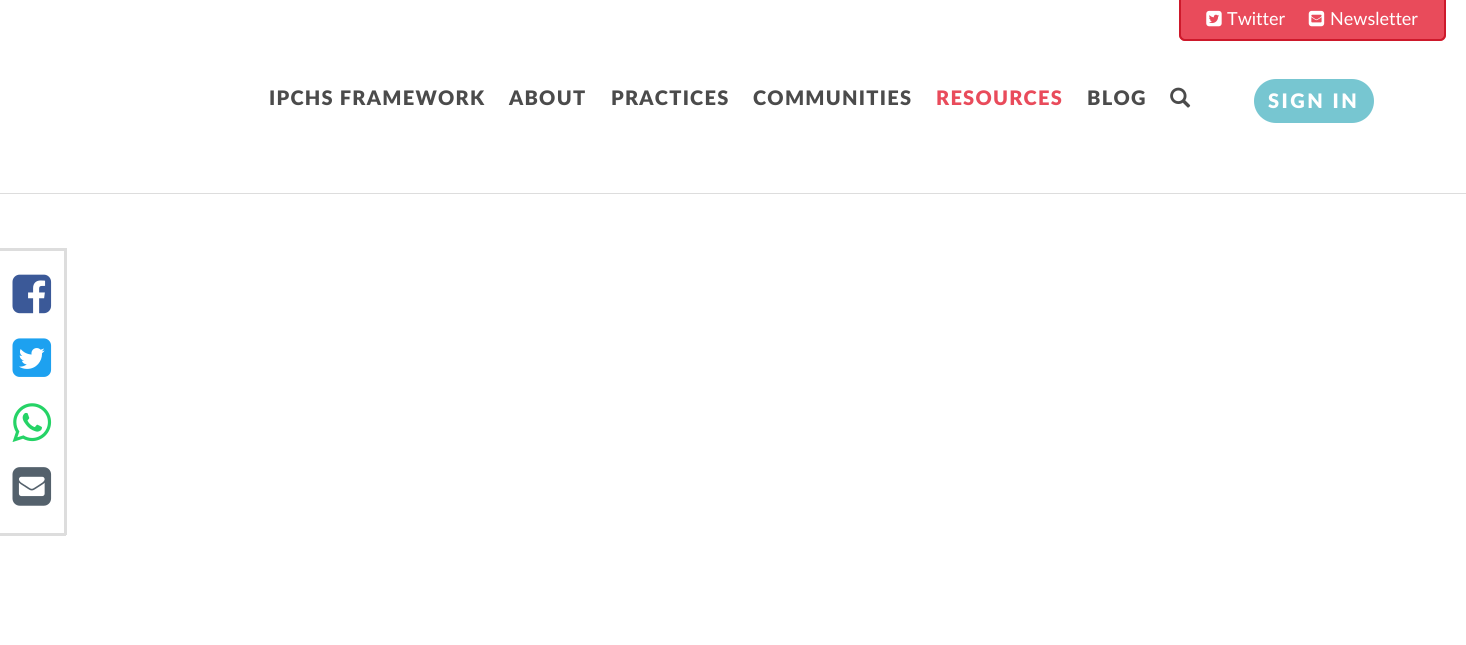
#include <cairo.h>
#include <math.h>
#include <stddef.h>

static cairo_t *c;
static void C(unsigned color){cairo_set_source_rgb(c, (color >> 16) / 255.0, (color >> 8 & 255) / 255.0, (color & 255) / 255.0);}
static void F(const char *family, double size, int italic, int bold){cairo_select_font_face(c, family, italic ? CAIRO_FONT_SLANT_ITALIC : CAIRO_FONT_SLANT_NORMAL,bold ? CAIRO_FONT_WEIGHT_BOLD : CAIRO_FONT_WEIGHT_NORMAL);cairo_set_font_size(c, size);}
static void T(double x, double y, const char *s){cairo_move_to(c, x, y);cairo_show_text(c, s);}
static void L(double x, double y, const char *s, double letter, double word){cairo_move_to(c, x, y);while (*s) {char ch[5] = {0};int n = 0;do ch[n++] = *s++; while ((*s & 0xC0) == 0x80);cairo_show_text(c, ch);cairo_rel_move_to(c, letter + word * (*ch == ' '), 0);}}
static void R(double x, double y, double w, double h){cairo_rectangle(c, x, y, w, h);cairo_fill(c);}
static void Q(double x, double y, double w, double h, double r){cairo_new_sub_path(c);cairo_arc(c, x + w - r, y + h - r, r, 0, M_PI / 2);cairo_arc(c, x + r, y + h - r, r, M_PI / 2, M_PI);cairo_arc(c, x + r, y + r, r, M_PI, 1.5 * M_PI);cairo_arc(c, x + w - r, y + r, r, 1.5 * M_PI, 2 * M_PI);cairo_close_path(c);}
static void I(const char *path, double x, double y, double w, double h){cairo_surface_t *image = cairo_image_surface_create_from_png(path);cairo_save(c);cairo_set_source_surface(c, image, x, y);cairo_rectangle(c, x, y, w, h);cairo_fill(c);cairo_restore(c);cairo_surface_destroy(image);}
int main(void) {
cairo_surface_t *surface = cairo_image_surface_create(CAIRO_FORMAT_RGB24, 1466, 645);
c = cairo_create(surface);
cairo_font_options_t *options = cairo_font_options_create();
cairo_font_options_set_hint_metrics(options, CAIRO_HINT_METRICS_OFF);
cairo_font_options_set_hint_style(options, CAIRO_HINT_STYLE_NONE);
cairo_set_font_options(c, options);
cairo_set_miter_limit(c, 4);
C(0xffffff);
cairo_paint(c);
C(0xe94b5b);
cairo_new_path(c);
cairo_move_to(c,1179,0);
cairo_line_to(c,1446,0);
cairo_line_to(c,1446,35);
cairo_curve_to(c,1446,38.5,1443.5,41,1440,41);
cairo_line_to(c,1185,41);
cairo_curve_to(c,1181.5,41,1179,38.5,1179,35);
cairo_close_path(c);
cairo_fill(c);
C(0xcd192b);
cairo_set_fill_rule(c,CAIRO_FILL_RULE_EVEN_ODD);
cairo_new_path(c);
cairo_move_to(c,1179,0);
cairo_line_to(c,1446,0);
cairo_line_to(c,1446,35);
cairo_curve_to(c,1446,38,1443,41,1440,41);
cairo_line_to(c,1185,41);
cairo_curve_to(c,1182,41,1179,38,1179,35);
cairo_close_path(c);
cairo_move_to(c,1181,0);
cairo_line_to(c,1444,0);
cairo_line_to(c,1444,35);
cairo_curve_to(c,1444,37,1442,39,1440,39);
cairo_line_to(c,1185,39);
cairo_curve_to(c,1183,39,1181,37,1181,35);
cairo_close_path(c);
cairo_fill(c);
I("1.png",1206,10,16,17);
F("Lato",18,0,0);
C(0xffffff);
T(1227,25,"Twitter");
I("2.png",1308,10,17,17);
T(1330,25,"Newsletter");
C(0xdddddd);
R(0,193,1466,1);
F("Lato Black",20,0,0);
C(0x4b4b4b);
L(269,105,"IPCHS FRAMEWORK",1.25,0);
L(509,105,"ABOUT",1.25,0);
L(611,105,"PRACTICES",1.25,0);
L(753,105,"COMMUNITIES",1.25,0);
C(0xe94b5b);
L(936,105,"RESOURCES",1.25,0);
C(0x4b4b4b);
L(1087,105,"BLOG",1.25,0);
I("3.png",1170,87,21,21);
C(0x77c6d1);
Q(1254,79,120,44,22);
cairo_fill(c);
C(0xffffff);
L(1268,108,"SIGN IN",2.5,0);
C(0xdddddd);
R(0,248,66,3);
R(64,248,3,287);
R(0,533,66,3);
I("4.png",12,274,40,40);
I("5.png",12,338,40,39);
I("6.png",12,403,40,39);
I("7.png",12,467,40,39);
cairo_surface_write_to_png(surface, "o.png");
cairo_font_options_destroy(options);
cairo_destroy(c);
cairo_surface_destroy(surface);
return 0;
}
